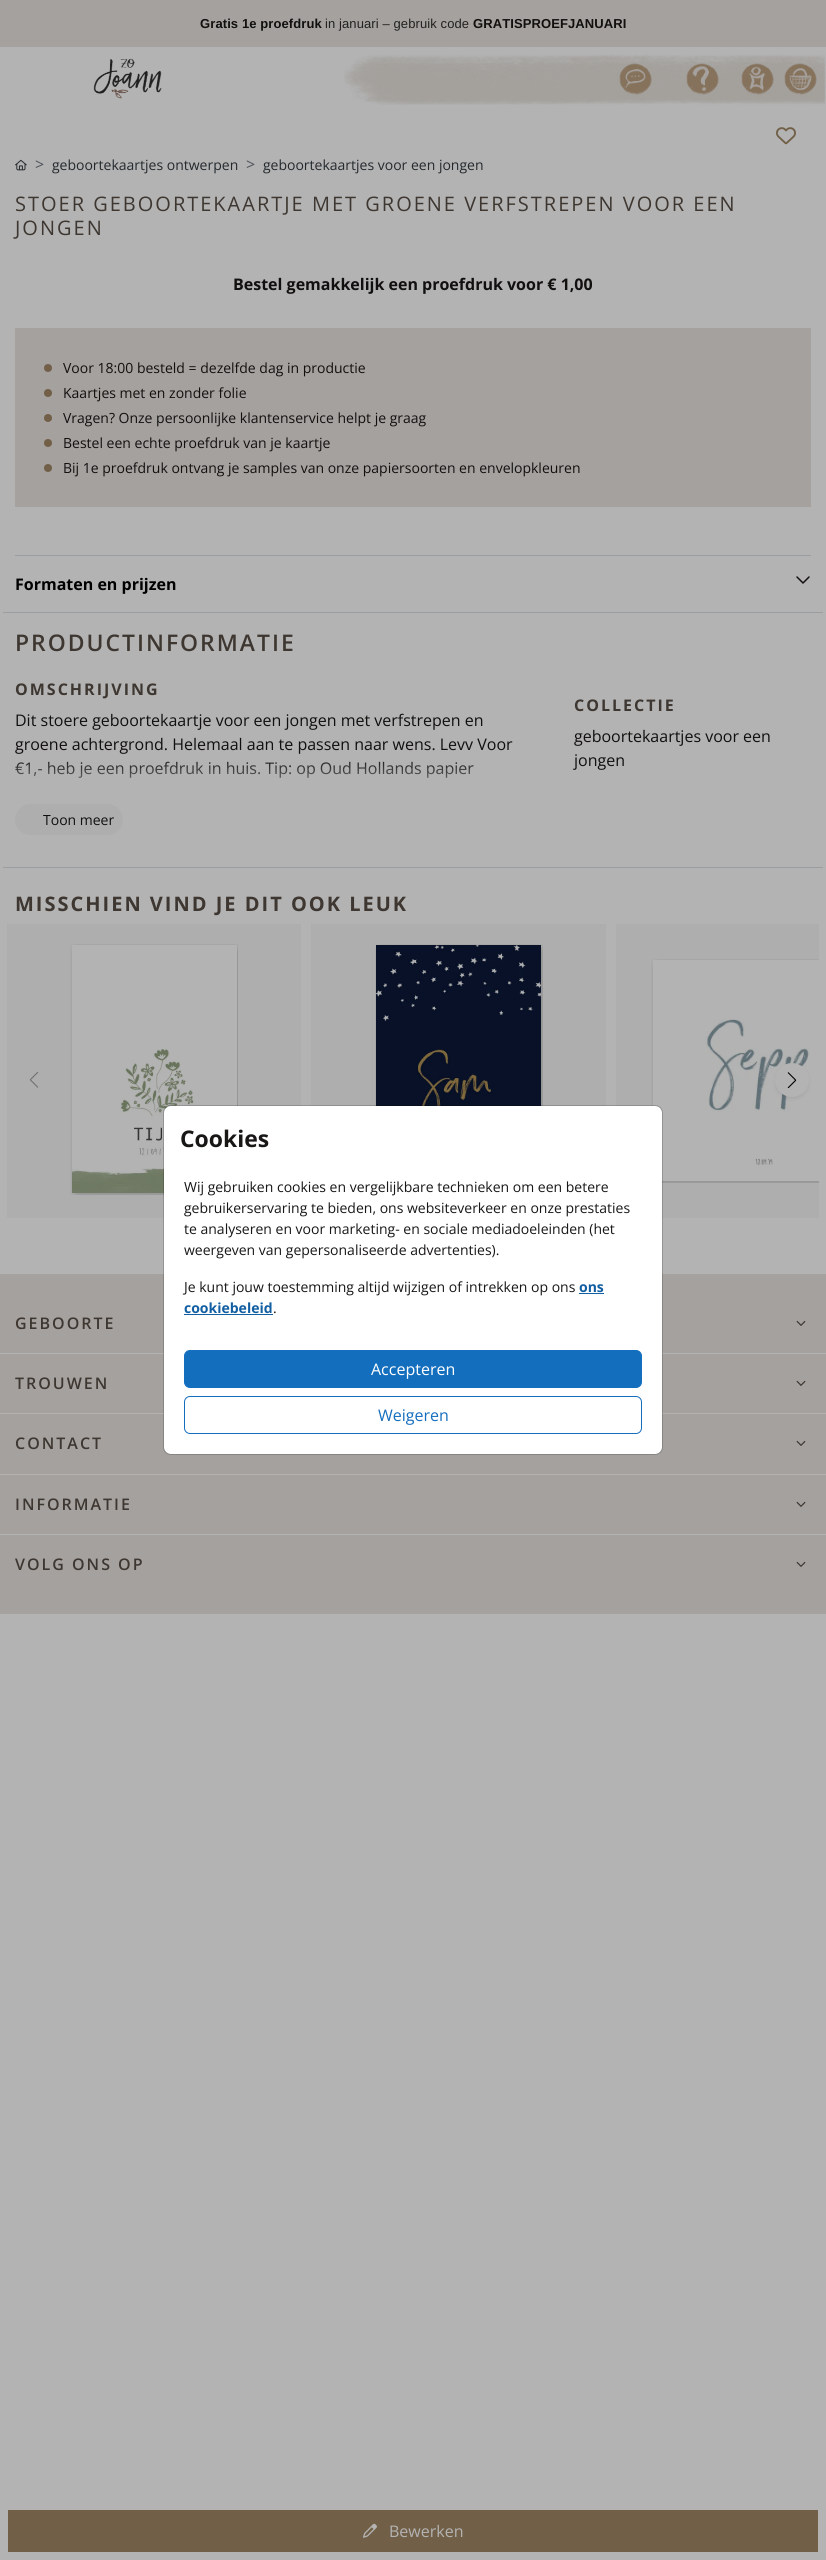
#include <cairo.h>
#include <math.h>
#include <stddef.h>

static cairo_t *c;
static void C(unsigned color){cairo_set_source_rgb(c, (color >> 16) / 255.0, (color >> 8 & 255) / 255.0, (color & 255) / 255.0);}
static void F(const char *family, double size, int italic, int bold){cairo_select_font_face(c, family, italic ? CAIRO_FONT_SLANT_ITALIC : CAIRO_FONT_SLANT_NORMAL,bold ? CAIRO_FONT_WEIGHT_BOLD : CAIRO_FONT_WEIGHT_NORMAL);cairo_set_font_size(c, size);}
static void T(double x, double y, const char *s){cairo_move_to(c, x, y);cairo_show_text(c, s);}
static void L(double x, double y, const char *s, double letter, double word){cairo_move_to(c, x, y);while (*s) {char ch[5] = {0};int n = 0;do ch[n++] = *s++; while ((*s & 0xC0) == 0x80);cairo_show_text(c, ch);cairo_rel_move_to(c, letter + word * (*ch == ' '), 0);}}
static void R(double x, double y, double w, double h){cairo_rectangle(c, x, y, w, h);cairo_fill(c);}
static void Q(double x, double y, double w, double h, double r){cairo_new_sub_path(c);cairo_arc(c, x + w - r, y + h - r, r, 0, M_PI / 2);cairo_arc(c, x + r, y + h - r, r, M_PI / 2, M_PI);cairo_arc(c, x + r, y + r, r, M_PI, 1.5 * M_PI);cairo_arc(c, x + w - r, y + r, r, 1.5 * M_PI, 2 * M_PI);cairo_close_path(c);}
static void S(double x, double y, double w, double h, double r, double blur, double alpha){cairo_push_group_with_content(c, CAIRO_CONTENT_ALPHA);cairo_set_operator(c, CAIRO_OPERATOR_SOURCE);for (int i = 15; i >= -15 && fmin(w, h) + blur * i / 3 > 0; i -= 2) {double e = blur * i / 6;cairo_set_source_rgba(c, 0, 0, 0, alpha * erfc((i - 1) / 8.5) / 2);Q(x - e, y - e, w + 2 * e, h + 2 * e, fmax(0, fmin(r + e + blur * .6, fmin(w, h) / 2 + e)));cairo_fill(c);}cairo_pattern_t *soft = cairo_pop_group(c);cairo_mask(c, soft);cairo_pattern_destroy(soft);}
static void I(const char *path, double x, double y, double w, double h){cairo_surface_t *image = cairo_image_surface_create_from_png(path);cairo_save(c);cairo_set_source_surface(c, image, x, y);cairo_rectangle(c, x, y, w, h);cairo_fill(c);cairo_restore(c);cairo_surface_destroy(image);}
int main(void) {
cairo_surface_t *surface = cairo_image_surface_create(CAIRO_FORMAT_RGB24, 826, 2560);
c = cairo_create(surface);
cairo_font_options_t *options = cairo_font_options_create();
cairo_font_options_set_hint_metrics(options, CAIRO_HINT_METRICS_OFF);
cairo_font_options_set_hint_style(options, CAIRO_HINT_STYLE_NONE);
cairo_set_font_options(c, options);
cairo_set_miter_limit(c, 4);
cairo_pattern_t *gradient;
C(0xb3b3b3);
cairo_paint(c);
C(0xa5a19e);
R(0,0,826,47);
F("Liberation Sans",13,0,1);
C(0x11100f);
L(200,28,"Gratis 1e proefdruk",.1,0);
F("Liberation Sans",13,0,0);
C(0x212121);
L(325,28,"in januari – gebruik code",.1,0);
F("Liberation Sans",13,0,1);
C(0x11100f);
L(473,28,"GRATISPROEFJANUARI",.1,0);
I("1.png",344,54,482,51);
I("2.png",93,58,69,41);
I("3.png",619,63,33,32);
I("4.png",686,63,33,32);
I("5.png",741,63,33,32);
I("6.png",784,63,33,32);
I("7.png",776,127,20,18);
I("8.png",15,159,12,12);
F("Open Sans",16,0,0);
C(0x4c5258);
T(35,170,">");
F("Open Sans",14,0,0);
C(0x24292d);
T(52,170,"geboortekaartjes ontwerpen");
F("Open Sans",16,0,0);
C(0x4c5258);
T(246,170,">");
F("Open Sans",14,0,0);
C(0x24292d);
T(263,170,"geboortekaartjes voor een jongen");
F("Open Sans",20,0,0);
C(0x3e3731);
L(15,211,"STOER GEBOORTEKAARTJE MET GROENE VERFSTREPEN VOOR EEN",2,0);
L(15,235,"JONGEN",2,0);
F("Open Sans",16,0,1);
C(0x11100f);
T(233,290,"Bestel gemakkelijk een proefdruk voor € 1,00");
C(0xa5a19e);
R(15,328,796,179);
C(0x716047);
cairo_new_path(c);
cairo_arc(c,48,368,4,0,2 * M_PI);
cairo_fill(c);
F("Open Sans",14,0,0);
C(0x11100f);
T(63,373,"Voor 18:00 besteld = dezelfde dag in productie");
C(0x716047);
cairo_new_path(c);
cairo_arc(c,48,393,4,0,2 * M_PI);
cairo_fill(c);
C(0x11100f);
T(63,398,"Kaartjes met en zonder folie");
C(0x716047);
cairo_new_path(c);
cairo_arc(c,48,418,4,0,2 * M_PI);
cairo_fill(c);
C(0x11100f);
T(63,423,"Vragen? Onze persoonlijke klantenservice helpt je graag");
C(0x716047);
cairo_new_path(c);
cairo_arc(c,48,443,4,0,2 * M_PI);
cairo_fill(c);
C(0x11100f);
T(63,448,"Bestel een echte proefdruk van je kaartje");
C(0x716047);
cairo_new_path(c);
cairo_arc(c,48,468,4,0,2 * M_PI);
cairo_fill(c);
C(0x11100f);
T(63,473,"Bij 1e proefdruk ontvang je samples van onze papiersoorten en envelopkleuren");
C(0x9b9ea1);
R(15,555,796,1);
F("Open Sans",16,0,1);
C(0x000000);
T(15,590,"Formaten en prijzen");
I("9.png",796,576,14,8);
C(0x9b9ea1);
R(3,612,820,1);
R(3,867,820,1);
F("Open Sans SemiBold",22.9,0,0);
C(0x3e3731);
L(15,651,"PRODUCTINFORMATIE",2,0);
F("Open Sans",16,0,1);
L(15,695,"OMSCHRIJVING",2,0);
F("Open Sans",16,0,0);
C(0x11100f);
T(15,726,"Dit stoere geboortekaartje voor een jongen met verfstrepen en");
T(15,750,"groene achtergrond. Helemaal aan te passen naar wens. Levv Voor");
T(15,774,"€1,- heb je een proefdruk in huis. Tip: op Oud Hollands papier");
gradient = cairo_pattern_create_linear(265,756,265,804);
cairo_pattern_add_color_stop_rgba(gradient,0,0.702,0.702,0.702,0);
cairo_pattern_add_color_stop_rgba(gradient,1,0.702,0.702,0.702,1);
cairo_set_source(c,gradient);
cairo_pattern_destroy(gradient);
R(15,761,459,17);
C(0xaeaeaf);
Q(15,804,108,31,15.5);
cairo_fill(c);
F("Open Sans",14,0,0);
C(0x11100f);
T(43,825,"Toon meer");
F("Open Sans",16,0,1);
C(0x3e3731);
L(574,711,"COLLECTIE",2,0);
F("Open Sans",16,0,0);
C(0x11100f);
T(574,742,"geboortekaartjes voor een");
T(574,766,"jongen");
F("Open Sans",20,0,1);
C(0x3e3731);
L(15,911,"MISSCHIEN VIND JE DIT OOK LEUK",2,0);
C(0xaeaeaf);
R(7,924,294,294);
I("10.png",70,944,168,251);
R(311,924,295,5);
Q(311,924,295,294,5);
cairo_fill(c);
I("11.png",375,944,168,162);
R(616,924,5,5);
cairo_new_path(c);
cairo_move_to(c,621,924);
cairo_line_to(c,819,924);
cairo_line_to(c,819,1218);
cairo_line_to(c,621,1218);
cairo_curve_to(c,618,1218,616,1216,616,1213);
cairo_line_to(c,616,929);
cairo_curve_to(c,616,926,618,924,621,924);
cairo_close_path(c);
cairo_fill(c);
I("12.png",651,959,168,224);
I("13.png",29,1072,10,16);
C(0x000000);
S(775,1065,34,34,17,2,.07);
C(0xb3b3b3);
cairo_arc(c,792,1080,12.5,0,2 * M_PI);
cairo_fill_preserve(c);
cairo_set_line_width(c,9);
cairo_stroke(c);
I("14.png",787,1072,10,16);
C(0x716047);
R(8,2510,810,42);
I("15.png",363,2523,14,15);
F("Open Sans",16,0,0);
C(0xb3b3b3);
T(389,2537,"Bewerken");
C(0xa5a19e);
R(0,1274,826,340);
C(0xb3b3b3);
R(0,1353,826,1);
F("Open Sans SemiBold",16,0,0);
C(0x3e3731);
L(15,1329,"GEBOORTE",2,0);
I("16.png",796,1320,10,6);
C(0xb3b3b3);
R(0,1413,826,1);
C(0x3e3731);
L(15,1389,"TROUWEN",2,0);
I("16.png",796,1380,10,6);
C(0xb3b3b3);
R(0,1474,826,1);
C(0x3e3731);
L(15,1449,"CONTACT",2,0);
I("16.png",796,1440,10,6);
C(0xb3b3b3);
R(0,1534,826,1);
C(0x3e3731);
L(15,1510,"INFORMATIE",2,0);
I("16.png",796,1501,10,6);
L(15,1570,"VOLG ONS OP",2,0);
I("16.png",796,1561,10,6);
C(0xffffff);
Q(164,1106,498,348,7);
cairo_fill(c);
Q(163.5,1105.5,499,349,7.5);
cairo_set_source_rgba(c,0,0,0,0.18);
cairo_set_line_width(c,1);
cairo_stroke(c);
F("Open Sans",22.9,0,1);
C(0x181716);
T(180,1147,"Cookies");
F("Open Sans",14,0,0);
T(184,1192,"Wij gebruiken cookies en vergelijkbare technieken om een betere");
T(184,1213,"gebruikerservaring te bieden, ons websiteverkeer en onze prestaties");
T(184,1234,"te analyseren en voor marketing- en sociale mediadoeleinden (het");
T(184,1255,"weergeven van gepersonaliseerde advertenties).");
T(184,1292,"Je kunt jouw toestemming altijd wijzigen of intrekken op ons");
F("Open Sans",14,0,1);
C(0x115ea2);
T(579,1292,"ons");
R(579,1293,25,1);
T(184,1313,"cookiebeleid");
R(184,1314,89,1);
F("Open Sans",14,0,0);
C(0x181716);
T(273,1313,".");
C(0x146ebe);
Q(184.5,1350.5,457,37,5.5);
cairo_fill_preserve(c);
cairo_stroke(c);
F("Open Sans",16,0,0);
C(0xffffff);
T(371,1375,"Accepteren");
Q(184.5,1396.5,457,37,5.5);
C(0x146ebe);
cairo_stroke(c);
T(378,1421,"Weigeren");
cairo_surface_write_to_png(surface, "o.png");
cairo_font_options_destroy(options);
cairo_destroy(c);
cairo_surface_destroy(surface);
return 0;
}
